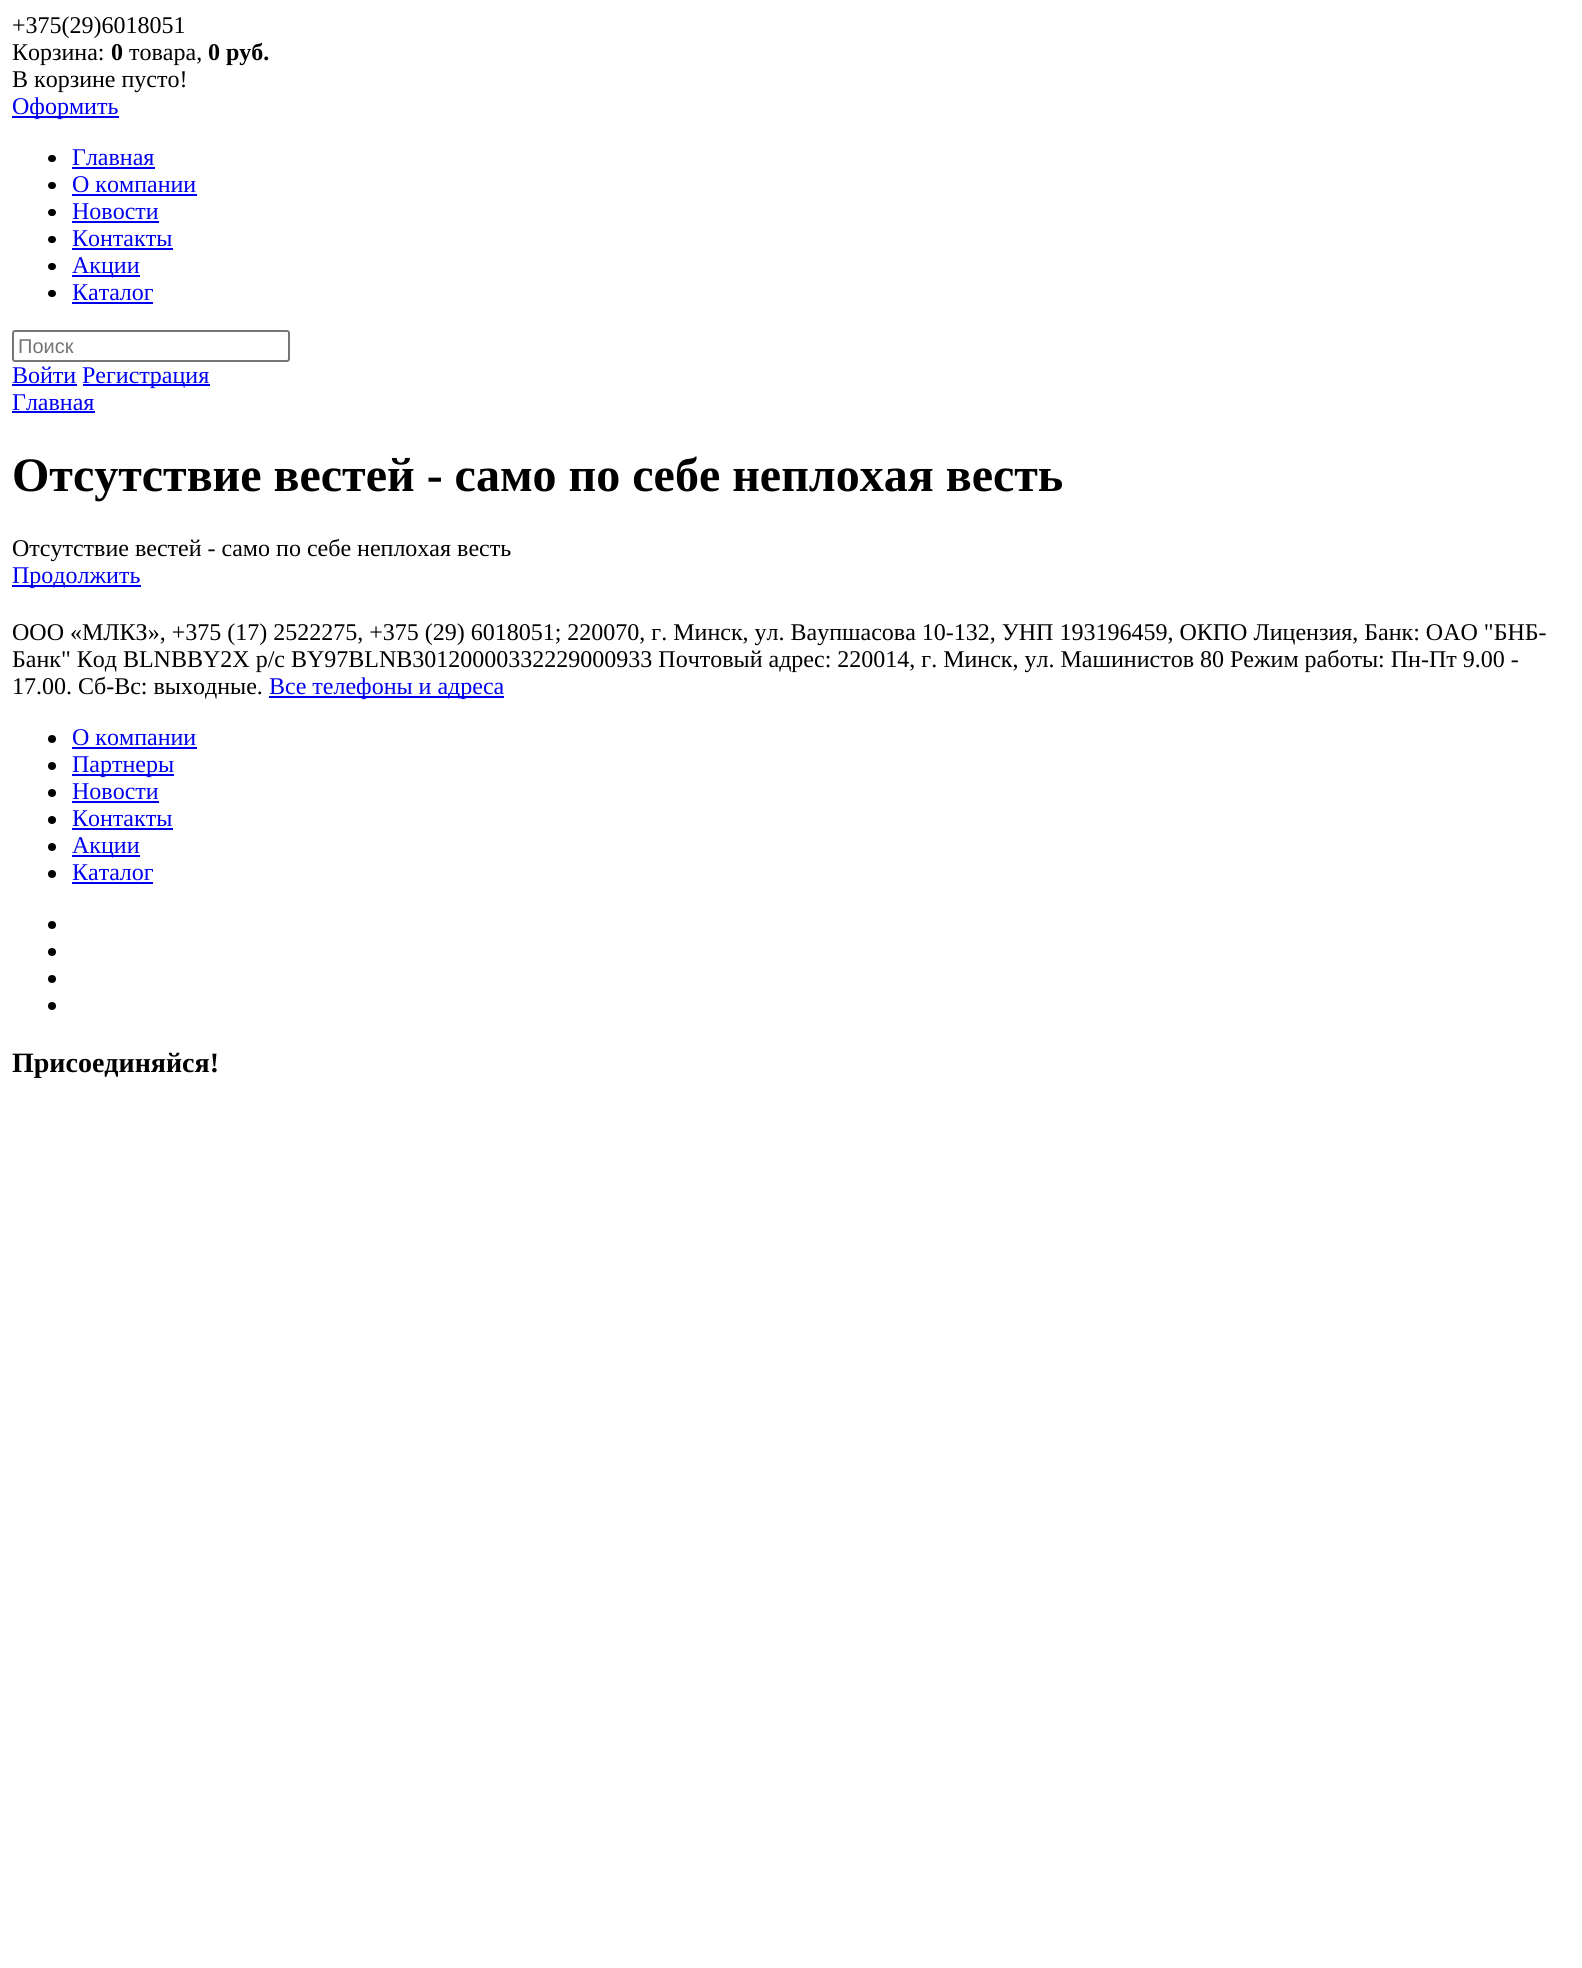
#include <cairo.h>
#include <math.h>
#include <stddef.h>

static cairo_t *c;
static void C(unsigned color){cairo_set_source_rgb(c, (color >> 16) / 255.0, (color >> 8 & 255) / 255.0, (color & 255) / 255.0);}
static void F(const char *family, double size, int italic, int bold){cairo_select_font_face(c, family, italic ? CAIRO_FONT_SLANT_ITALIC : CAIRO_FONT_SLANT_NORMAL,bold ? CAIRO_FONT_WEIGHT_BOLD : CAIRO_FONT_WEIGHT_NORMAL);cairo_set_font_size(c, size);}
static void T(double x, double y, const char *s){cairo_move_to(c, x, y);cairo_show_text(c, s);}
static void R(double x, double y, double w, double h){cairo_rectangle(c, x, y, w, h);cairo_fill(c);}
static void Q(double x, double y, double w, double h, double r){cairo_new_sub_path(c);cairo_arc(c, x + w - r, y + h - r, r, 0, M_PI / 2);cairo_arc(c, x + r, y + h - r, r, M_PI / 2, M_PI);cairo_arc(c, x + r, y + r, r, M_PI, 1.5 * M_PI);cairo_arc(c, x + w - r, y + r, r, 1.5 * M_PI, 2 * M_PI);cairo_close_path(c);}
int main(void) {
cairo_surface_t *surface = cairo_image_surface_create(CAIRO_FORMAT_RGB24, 1582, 1968);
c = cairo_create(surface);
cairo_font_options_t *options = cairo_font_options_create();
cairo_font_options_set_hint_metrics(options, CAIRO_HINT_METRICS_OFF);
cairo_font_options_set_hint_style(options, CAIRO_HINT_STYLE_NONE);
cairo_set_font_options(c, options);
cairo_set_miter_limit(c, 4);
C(0xffffff);
cairo_paint(c);
F("Liberation Serif",24,0,0);
C(0x000000);
T(12,33,"+375(29)6018051");
T(12,60,"Корзина:");
F("Liberation Serif",24,0,1);
T(111,60,"0");
F("Liberation Serif",24,0,0);
T(129,60,"товара,");
F("Liberation Serif",24,0,1);
T(208,60,"0 руб.");
F("Liberation Serif",24,0,0);
T(12,87,"В корзине пусто!");
C(0x0000ee);
R(12,116,107,2);
T(12,114,"Оформить");
C(0x000000);
Q(48,155,8,7,3.5);
cairo_fill(c);
C(0x0000ee);
T(72,165,"Главная");
R(72,167,83,2);
C(0x000000);
Q(48,182,8,7,3.5);
cairo_fill(c);
C(0x0000ee);
T(72,192,"О компании");
R(72,194,125,2);
C(0x000000);
Q(48,209,8,7,3.5);
cairo_fill(c);
C(0x0000ee);
T(72,219,"Новости");
R(72,221,87,2);
C(0x000000);
Q(48,236,8,7,3.5);
cairo_fill(c);
C(0x0000ee);
T(72,246,"Контакты");
R(72,248,101,2);
C(0x000000);
Q(48,263,8,7,3.5);
cairo_fill(c);
C(0x0000ee);
R(72,275,68,2);
T(72,273,"Акции");
C(0x000000);
Q(48,290,8,7,3.5);
cairo_fill(c);
C(0x0000ee);
T(72,300,"Каталог");
R(72,302,81,2);
Q(13,331,276,30,2);
C(0x767676);
cairo_stroke(c);
F("Liberation Sans",20,0,0);
C(0x757575);
T(18,353,"Поиск");
F("Liberation Serif",24,0,0);
C(0x0000ee);
T(12,383,"Войти");
R(12,384,65,2);
R(83,384,127,2);
T(82,383,"Регистрация");
T(12,410,"Главная");
R(12,411,83,2);
F("Liberation Serif",48,0,1);
C(0x000000);
T(12,491,"Отсутствие вестей - само по себе неплохая весть");
F("Liberation Serif",24,0,0);
T(12,556,"Отсутствие вестей - само по себе неплохая весть");
C(0x0000ee);
R(12,585,129,2);
T(12,583,"Продолжить");
C(0x000000);
T(12,640,"ООО «МЛКЗ», +375 (17) 2522275, +375 (29) 6018051; 220070, г. Минск, ул. Ваупшасова 10-132, УНП 193196459, ОКПО Лицензия, Банк: OАО \"БНБ-");
T(12,667,"Банк\" Код BLNBBY2X р/с BY97BLNB30120000332229000933 Почтовый адрес: 220014, г. Минск, ул. Машинистов 80 Режим работы: Пн-Пт 9.00 -");
T(12,694,"17.00. Сб-Вс: выходные.");
C(0x0000ee);
R(269,696,235,2);
T(269,694,"Все телефоны и адреса");
C(0x000000);
cairo_new_path(c);
cairo_arc(c,52,739,4,0,2 * M_PI);
cairo_fill(c);
C(0x0000ee);
T(72,745,"О компании");
R(72,747,125,2);
C(0x000000);
cairo_new_path(c);
cairo_arc(c,52,766,4,0,2 * M_PI);
cairo_fill(c);
C(0x0000ee);
R(72,774,102,2);
T(72,772,"Партнеры");
C(0x000000);
cairo_new_path(c);
cairo_arc(c,52,793,4,0,2 * M_PI);
cairo_fill(c);
C(0x0000ee);
T(72,799,"Новости");
R(72,801,87,2);
C(0x000000);
cairo_new_path(c);
cairo_arc(c,52,820,4,0,2 * M_PI);
cairo_fill(c);
C(0x0000ee);
T(72,826,"Контакты");
R(72,828,101,2);
C(0x000000);
cairo_new_path(c);
cairo_arc(c,52,847,4,0,2 * M_PI);
cairo_fill(c);
C(0x0000ee);
R(72,855,68,2);
T(72,853,"Акции");
C(0x000000);
cairo_new_path(c);
cairo_arc(c,52,874,4,0,2 * M_PI);
cairo_fill(c);
C(0x0000ee);
T(72,880,"Каталог");
R(72,882,81,2);
C(0x000000);
cairo_new_path(c);
cairo_arc(c,52,925,4,0,2 * M_PI);
cairo_fill(c);
cairo_arc(c,52,952,4,0,2 * M_PI);
cairo_fill(c);
cairo_arc(c,52,979,4,0,2 * M_PI);
cairo_fill(c);
cairo_arc(c,52,1006,4,0,2 * M_PI);
cairo_fill(c);
F("Liberation Serif",28,0,1);
T(12,1072,"Присоединяйся!");
cairo_surface_write_to_png(surface, "o.png");
cairo_font_options_destroy(options);
cairo_destroy(c);
cairo_surface_destroy(surface);
return 0;
}
